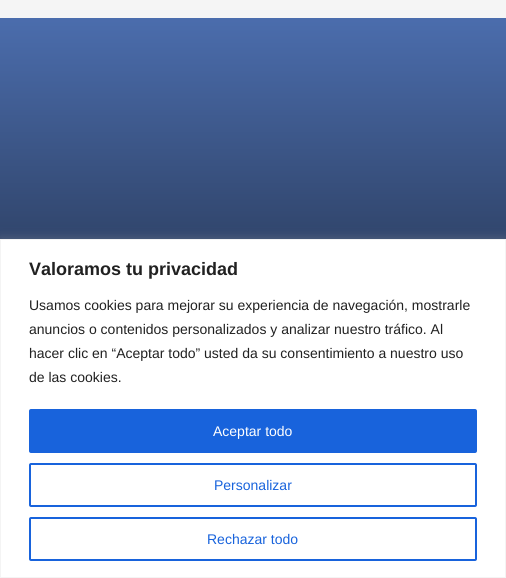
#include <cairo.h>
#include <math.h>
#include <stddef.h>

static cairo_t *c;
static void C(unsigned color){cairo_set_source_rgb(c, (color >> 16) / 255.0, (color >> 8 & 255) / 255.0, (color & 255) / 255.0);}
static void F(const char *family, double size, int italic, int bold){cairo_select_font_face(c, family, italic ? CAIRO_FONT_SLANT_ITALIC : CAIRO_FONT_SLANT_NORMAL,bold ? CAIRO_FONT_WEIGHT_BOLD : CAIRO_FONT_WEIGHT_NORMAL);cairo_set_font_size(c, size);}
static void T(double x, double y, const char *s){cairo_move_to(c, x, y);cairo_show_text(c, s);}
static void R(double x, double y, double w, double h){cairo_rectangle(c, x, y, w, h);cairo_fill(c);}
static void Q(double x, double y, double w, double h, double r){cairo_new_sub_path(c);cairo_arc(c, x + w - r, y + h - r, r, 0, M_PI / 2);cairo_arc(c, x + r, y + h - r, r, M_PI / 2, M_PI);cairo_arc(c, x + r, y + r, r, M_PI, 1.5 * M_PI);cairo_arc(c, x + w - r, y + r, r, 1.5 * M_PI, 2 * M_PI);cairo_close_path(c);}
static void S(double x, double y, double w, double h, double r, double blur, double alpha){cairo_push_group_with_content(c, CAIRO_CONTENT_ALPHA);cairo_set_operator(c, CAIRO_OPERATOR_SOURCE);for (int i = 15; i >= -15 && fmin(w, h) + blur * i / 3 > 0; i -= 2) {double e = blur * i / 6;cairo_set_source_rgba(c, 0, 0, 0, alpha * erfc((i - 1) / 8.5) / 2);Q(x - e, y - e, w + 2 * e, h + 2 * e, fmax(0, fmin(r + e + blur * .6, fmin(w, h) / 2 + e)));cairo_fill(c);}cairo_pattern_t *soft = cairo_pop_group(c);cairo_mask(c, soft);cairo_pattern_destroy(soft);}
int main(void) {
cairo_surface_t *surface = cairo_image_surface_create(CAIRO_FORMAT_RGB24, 506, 578);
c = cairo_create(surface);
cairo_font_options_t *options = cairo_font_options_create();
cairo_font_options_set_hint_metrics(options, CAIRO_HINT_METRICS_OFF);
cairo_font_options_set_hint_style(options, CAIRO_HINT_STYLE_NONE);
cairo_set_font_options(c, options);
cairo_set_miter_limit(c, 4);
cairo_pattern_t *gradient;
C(0xf5f5f5);
cairo_paint(c);
gradient = cairo_pattern_create_linear(253,18,253,578);
cairo_pattern_add_color_stop_rgba(gradient,0,0.294,0.427,0.678,1);
cairo_pattern_add_color_stop_rgba(gradient,1,0.035,0.035,0.035,1);
cairo_set_source(c,gradient);
cairo_pattern_destroy(gradient);
R(0,18,506,221);
C(0xacabab);
S(0,238,506,339,0,5,.3);
C(0xffffff);
cairo_rectangle(c,.5,239.5,505,338);
cairo_fill_preserve(c);
C(0xf4f4f4);
cairo_set_line_width(c,1);
cairo_stroke(c);
F("Liberation Sans",18,0,1);
C(0x212121);
T(29,275,"Valoramos tu privacidad");
F("Liberation Sans",14,0,0);
T(29,310,"Usamos cookies para mejorar su experiencia de navegación, mostrarle");
T(29,334,"anuncios o contenidos personalizados y analizar nuestro tráfico. Al");
T(29,358,"hacer clic en “Aceptar todo” usted da su consentimiento a nuestro uso");
T(29,382,"de las cookies.");
C(0x1863dc);
Q(30,410,446,42,1);
cairo_fill_preserve(c);
cairo_set_line_width(c,2);
cairo_stroke(c);
C(0xffffff);
T(213,436,"Aceptar todo");
Q(30,464,446,42,1);
C(0x1863dc);
cairo_stroke(c);
T(214,490,"Personalizar");
Q(30,518,446,42,1);
cairo_stroke(c);
T(207,544,"Rechazar todo");
cairo_surface_write_to_png(surface, "o.png");
cairo_font_options_destroy(options);
cairo_destroy(c);
cairo_surface_destroy(surface);
return 0;
}
